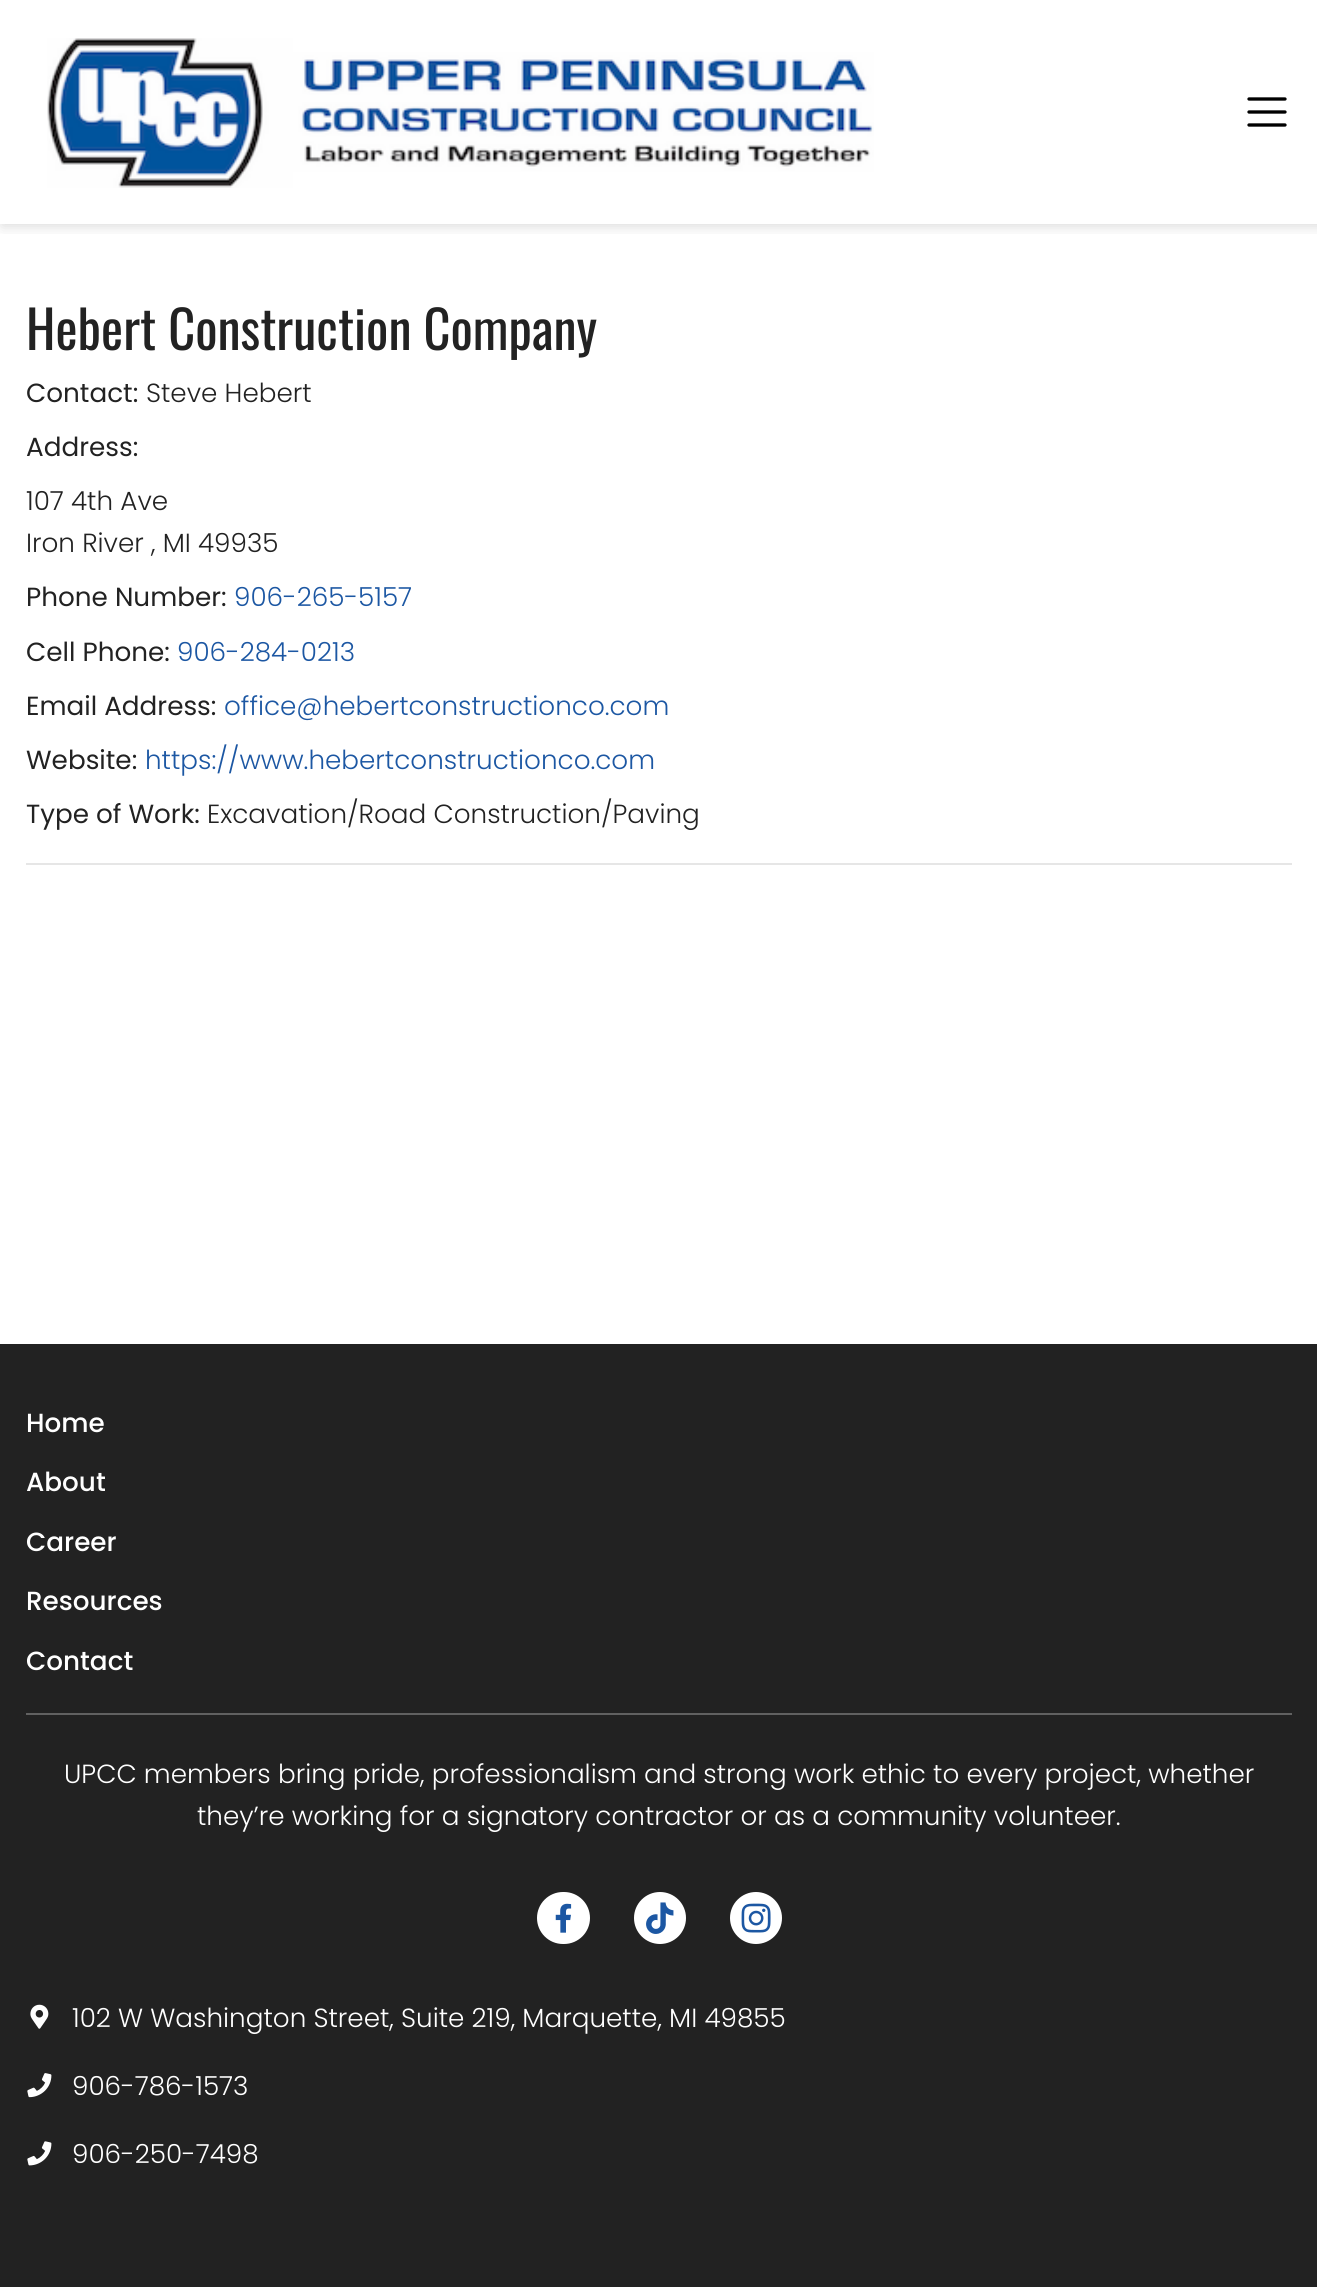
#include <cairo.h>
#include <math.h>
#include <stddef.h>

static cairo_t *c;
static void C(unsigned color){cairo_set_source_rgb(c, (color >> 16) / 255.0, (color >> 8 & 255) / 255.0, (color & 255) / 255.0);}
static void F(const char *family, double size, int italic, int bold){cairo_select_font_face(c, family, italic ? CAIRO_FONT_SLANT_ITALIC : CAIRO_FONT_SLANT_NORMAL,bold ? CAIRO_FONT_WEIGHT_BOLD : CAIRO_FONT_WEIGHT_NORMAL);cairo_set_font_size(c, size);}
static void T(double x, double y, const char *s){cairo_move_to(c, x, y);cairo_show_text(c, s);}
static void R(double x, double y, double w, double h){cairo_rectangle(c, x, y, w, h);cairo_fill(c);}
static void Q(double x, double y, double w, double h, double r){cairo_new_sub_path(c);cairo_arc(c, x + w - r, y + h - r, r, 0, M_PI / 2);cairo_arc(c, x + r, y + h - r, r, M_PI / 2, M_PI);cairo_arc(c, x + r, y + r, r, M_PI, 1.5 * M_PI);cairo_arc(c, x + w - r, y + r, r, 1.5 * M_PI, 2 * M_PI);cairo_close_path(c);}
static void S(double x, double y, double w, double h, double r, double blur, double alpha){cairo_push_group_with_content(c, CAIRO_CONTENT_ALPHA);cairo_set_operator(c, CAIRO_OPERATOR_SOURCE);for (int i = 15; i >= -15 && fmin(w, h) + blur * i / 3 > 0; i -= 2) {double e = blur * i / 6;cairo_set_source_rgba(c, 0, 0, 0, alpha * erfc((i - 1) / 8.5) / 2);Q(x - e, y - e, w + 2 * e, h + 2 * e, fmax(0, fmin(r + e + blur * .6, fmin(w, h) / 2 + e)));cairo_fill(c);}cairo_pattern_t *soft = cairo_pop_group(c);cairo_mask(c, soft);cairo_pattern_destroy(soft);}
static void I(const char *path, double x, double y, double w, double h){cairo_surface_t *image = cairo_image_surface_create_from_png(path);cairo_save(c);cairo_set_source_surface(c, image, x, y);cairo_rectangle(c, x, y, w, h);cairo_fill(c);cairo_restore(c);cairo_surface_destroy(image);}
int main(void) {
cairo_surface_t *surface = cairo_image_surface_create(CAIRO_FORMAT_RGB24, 1317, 2287);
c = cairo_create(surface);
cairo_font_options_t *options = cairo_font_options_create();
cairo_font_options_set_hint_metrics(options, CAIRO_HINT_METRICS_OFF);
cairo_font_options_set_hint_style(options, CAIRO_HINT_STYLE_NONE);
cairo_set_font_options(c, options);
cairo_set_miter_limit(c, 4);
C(0xffffff);
cairo_paint(c);
cairo_save(c);
cairo_rectangle(c,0,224,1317,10);
cairo_clip(c);
C(0x000000);
S(2,2,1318,224,0,7,.15);
cairo_restore(c);
I("1.png",47,38,827,150);
cairo_new_path(c);
cairo_move_to(c,1249,99);
cairo_line_to(c,1285,99);
cairo_move_to(c,1249,112);
cairo_line_to(c,1285,112);
cairo_move_to(c,1249,125);
cairo_line_to(c,1285,125);
C(0x000000);
cairo_set_line_width(c,3.3);
cairo_set_line_cap(c,CAIRO_LINE_CAP_ROUND);
cairo_stroke(c);
F("Oswald",52.5,0,0);
C(0x222222);
T(26,350,"Hebert Construction Company");
F("Poppins",26.25,0,0);
T(26,402,"Contact:");
F("Poppins Light",26.25,0,0);
T(146,402,"Steve Hebert");
F("Poppins",26.25,0,0);
T(26,456,"Address:");
F("Poppins Light",26.25,0,0);
T(26,510,"107 4th Ave");
T(26,552,"Iron River , MI 49935");
F("Poppins",26.25,0,0);
T(26,606,"Phone Number:");
F("Poppins Light",26.25,0,0);
C(0x1c57a3);
T(234,606,"906-265-5157");
F("Poppins",26.25,0,0);
C(0x222222);
T(26,661,"Cell Phone:");
F("Poppins Light",26.25,0,0);
C(0x1c57a3);
T(177,661,"906-284-0213");
F("Poppins",26.25,0,0);
C(0x222222);
T(26,715,"Email Address:");
F("Poppins Light",26.25,0,0);
C(0x1c57a3);
T(224,715,"office@hebertconstructionco.com");
F("Poppins",26.25,0,0);
C(0x222222);
T(26,769,"Website:");
F("Poppins Light",26.25,0,0);
C(0x1c57a3);
T(145,769,"https://www.hebertconstructionco.com");
F("Poppins",26.25,0,0);
C(0x222222);
T(26,823,"Type of Work:");
F("Poppins Light",26.25,0,0);
T(207,823,"Excavation/Road Construction/Paving");
C(0xe6e6e6);
R(26,863,1266,2);
C(0x222222);
R(0,1344,1317,943);
C(0x616161);
R(26,1713,1266,2);
F("Poppins Medium",26.25,0,0);
C(0xffffff);
T(26,1432,"Home");
T(26,1491,"About");
T(26,1551,"Career");
T(26,1610,"Resources");
T(26,1670,"Contact");
F("Poppins Light",26.25,0,0);
T(64,1783,"UPCC members bring pride, professionalism and strong work ethic to every project, whether");
T(197,1825,"they’re working for a signatory contractor or as a community volunteer.");
Q(537,1892,53,52,26);
cairo_fill(c);
I("2.png",555,1903,17,30);
cairo_arc(c,660,1918,26,0,2 * M_PI);
cairo_fill(c);
I("3.png",646,1902,28,32);
cairo_arc(c,756,1918,26,0,2 * M_PI);
cairo_fill(c);
I("4.png",741,1903,30,30);
I("5.png",30,2004,19,25);
T(72,2027,"102 W Washington Street, Suite 219, Marquette, MI 49855");
I("6.png",27,2073,25,25);
T(72,2095,"906-786-1573");
I("7.png",27,2141,25,25);
T(72,2163,"906-250-7498");
cairo_surface_write_to_png(surface, "o.png");
cairo_font_options_destroy(options);
cairo_destroy(c);
cairo_surface_destroy(surface);
return 0;
}
